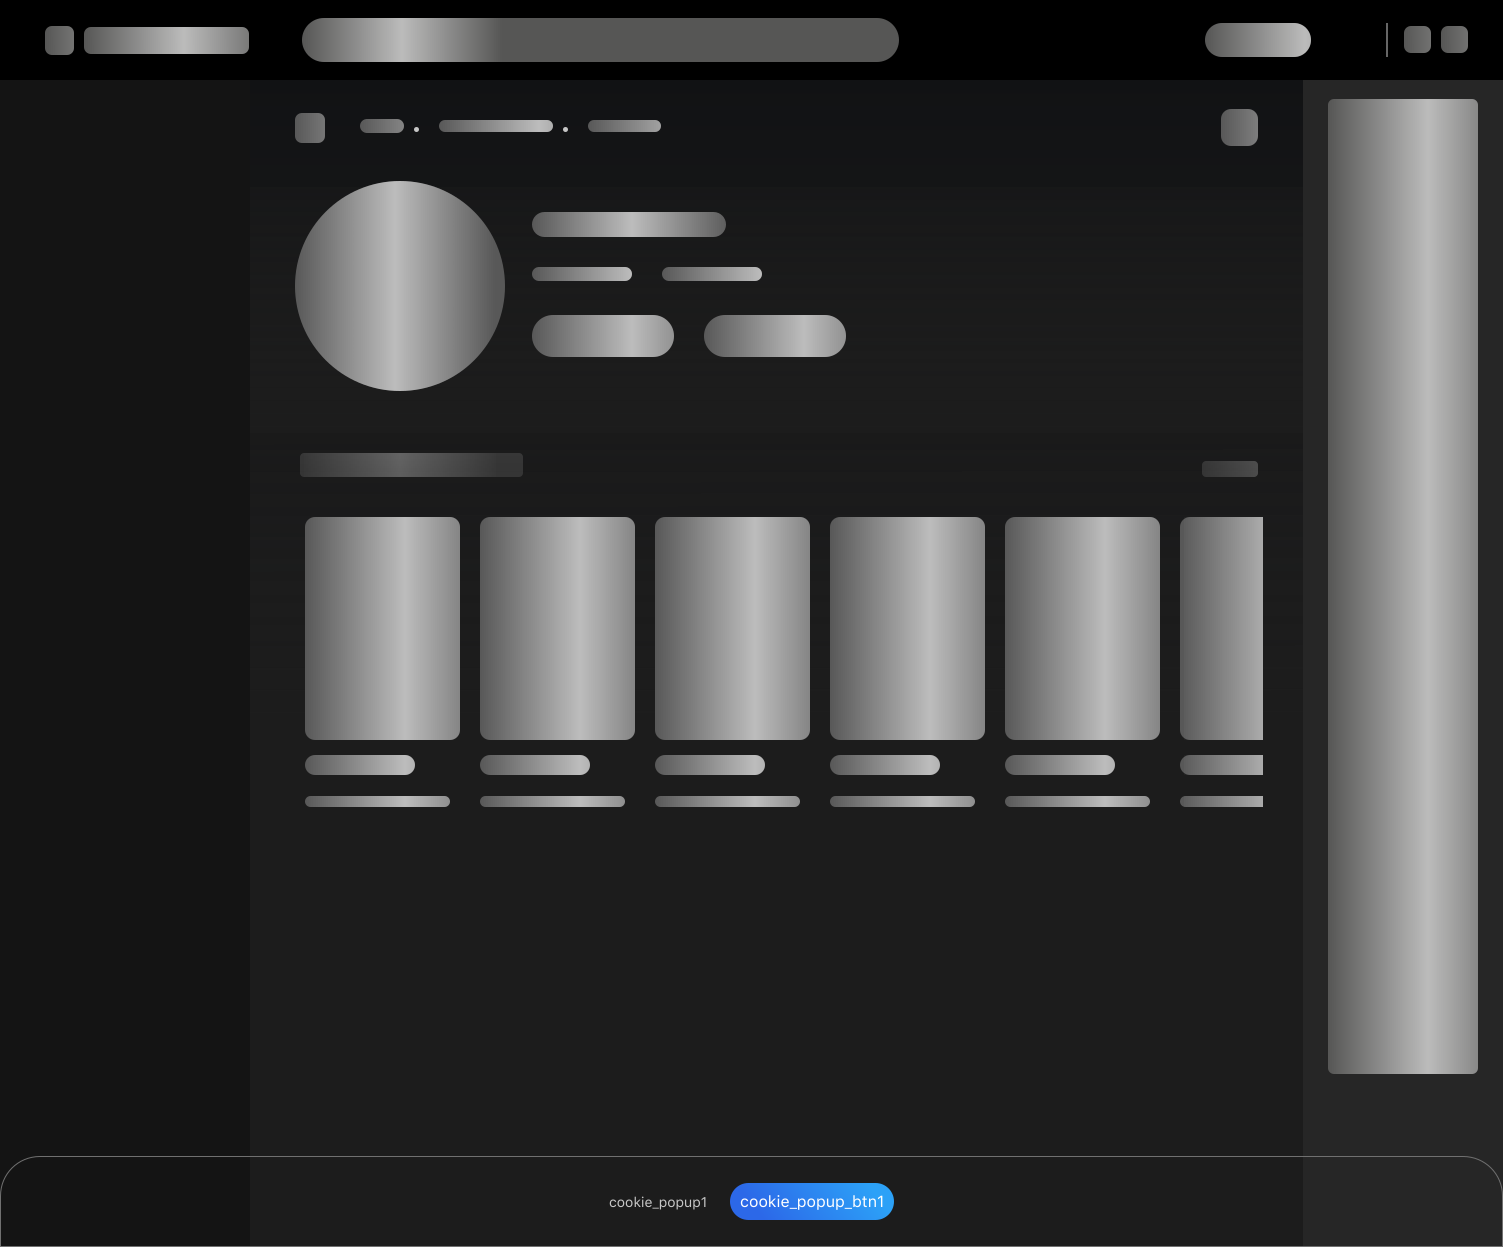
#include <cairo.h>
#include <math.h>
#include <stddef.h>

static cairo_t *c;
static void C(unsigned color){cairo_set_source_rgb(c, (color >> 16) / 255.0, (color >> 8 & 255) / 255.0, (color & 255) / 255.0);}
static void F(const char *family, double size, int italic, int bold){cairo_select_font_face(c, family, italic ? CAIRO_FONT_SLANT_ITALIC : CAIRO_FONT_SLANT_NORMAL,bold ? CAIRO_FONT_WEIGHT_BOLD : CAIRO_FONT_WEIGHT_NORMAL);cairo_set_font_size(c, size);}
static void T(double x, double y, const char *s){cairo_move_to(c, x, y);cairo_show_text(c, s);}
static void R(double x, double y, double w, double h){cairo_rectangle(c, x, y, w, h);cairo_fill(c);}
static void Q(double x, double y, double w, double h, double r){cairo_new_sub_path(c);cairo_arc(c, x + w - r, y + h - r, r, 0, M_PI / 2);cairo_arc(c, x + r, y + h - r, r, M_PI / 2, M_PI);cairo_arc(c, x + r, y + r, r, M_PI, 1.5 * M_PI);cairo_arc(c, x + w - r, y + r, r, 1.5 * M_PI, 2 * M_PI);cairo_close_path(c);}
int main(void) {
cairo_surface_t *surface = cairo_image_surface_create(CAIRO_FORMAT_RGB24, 1503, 1247);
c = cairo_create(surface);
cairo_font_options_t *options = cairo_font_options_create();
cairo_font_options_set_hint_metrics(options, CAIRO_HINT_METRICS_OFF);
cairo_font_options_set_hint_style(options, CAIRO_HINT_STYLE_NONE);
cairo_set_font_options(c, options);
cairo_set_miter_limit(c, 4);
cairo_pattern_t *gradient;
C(0x000000);
cairo_paint(c);
C(0x565655);
Q(45,26,29,29,7);
cairo_fill(c);
gradient = cairo_pattern_create_linear(45,41,245,40);
cairo_pattern_add_color_stop_rgba(gradient,0,1,1,1,0);
cairo_pattern_add_color_stop_rgba(gradient,.5,1,1,1,.6);
cairo_pattern_add_color_stop_rgba(gradient,1,1,1,1,0);
cairo_set_source(c,gradient);
cairo_pattern_destroy(gradient);
Q(45,26,29,29,7);
cairo_fill(c);
C(0x565655);
Q(84,27,165,27,7);
cairo_fill(c);
gradient = cairo_pattern_create_linear(84,41,284,40);
cairo_pattern_add_color_stop_rgba(gradient,0,1,1,1,0);
cairo_pattern_add_color_stop_rgba(gradient,.5,1,1,1,.6);
cairo_pattern_add_color_stop_rgba(gradient,1,1,1,1,0);
cairo_set_source(c,gradient);
cairo_pattern_destroy(gradient);
Q(84,27,165,27,7);
cairo_fill(c);
C(0x565655);
Q(302,18,597,44,22);
cairo_fill(c);
gradient = cairo_pattern_create_linear(302,40,502,40);
cairo_pattern_add_color_stop_rgba(gradient,0,1,1,1,0);
cairo_pattern_add_color_stop_rgba(gradient,.5,1,1,1,.6);
cairo_pattern_add_color_stop_rgba(gradient,1,1,1,1,0);
cairo_set_source(c,gradient);
cairo_pattern_destroy(gradient);
cairo_new_path(c);
cairo_move_to(c,324,18);
cairo_line_to(c,502,18);
cairo_line_to(c,502,62);
cairo_line_to(c,324,62);
cairo_curve_to(c,312,62,302,52,302,40);
cairo_curve_to(c,302,28,312,18,324,18);
cairo_close_path(c);
cairo_fill(c);
C(0x565655);
Q(1205,23,106,34,17);
cairo_fill(c);
gradient = cairo_pattern_create_linear(1205,40,1405,40);
cairo_pattern_add_color_stop_rgba(gradient,0,1,1,1,0);
cairo_pattern_add_color_stop_rgba(gradient,.5,1,1,1,.6);
cairo_pattern_add_color_stop_rgba(gradient,1,1,1,1,0);
cairo_set_source(c,gradient);
cairo_pattern_destroy(gradient);
Q(1205,23,106,34,17);
cairo_fill(c);
C(0x666666);
R(1386,23,2,34);
C(0x565655);
Q(1404,26,27,27,7);
cairo_fill(c);
gradient = cairo_pattern_create_linear(1404,40,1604,39);
cairo_pattern_add_color_stop_rgba(gradient,0,1,1,1,0);
cairo_pattern_add_color_stop_rgba(gradient,.5,1,1,1,.6);
cairo_pattern_add_color_stop_rgba(gradient,1,1,1,1,0);
cairo_set_source(c,gradient);
cairo_pattern_destroy(gradient);
Q(1404,26,27,27,7);
cairo_fill(c);
C(0x565655);
Q(1441,26,27,27,7);
cairo_fill(c);
gradient = cairo_pattern_create_linear(1441,40,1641,39);
cairo_pattern_add_color_stop_rgba(gradient,0,1,1,1,0);
cairo_pattern_add_color_stop_rgba(gradient,.5,1,1,1,.6);
cairo_pattern_add_color_stop_rgba(gradient,1,1,1,1,0);
cairo_set_source(c,gradient);
cairo_pattern_destroy(gradient);
Q(1441,26,27,27,7);
cairo_fill(c);
C(0x141414);
R(0,80,250,1166);
C(0x111214);
R(250,433,1053,287);
gradient = cairo_pattern_create_linear(777,80,777,433);
cairo_pattern_add_color_stop_rgba(gradient,0,0.067,0.071,0.078,1);
cairo_pattern_add_color_stop_rgba(gradient,1,0.11,0.11,0.11,1);
cairo_set_source(c,gradient);
cairo_pattern_destroy(gradient);
R(250,80,1053,351);
C(0x585858);
Q(295,113,30,30,7);
cairo_fill(c);
gradient = cairo_pattern_create_linear(295,128,495,128);
cairo_pattern_add_color_stop_rgba(gradient,0,1,1,1,0);
cairo_pattern_add_color_stop_rgba(gradient,.5,1,1,1,.6);
cairo_pattern_add_color_stop_rgba(gradient,1,1,1,1,0);
cairo_set_source(c,gradient);
cairo_pattern_destroy(gradient);
Q(295,113,30,30,7);
cairo_fill(c);
C(0x585858);
Q(360,119,44,14,7);
cairo_fill(c);
gradient = cairo_pattern_create_linear(360,126,560,126);
cairo_pattern_add_color_stop_rgba(gradient,0,1,1,1,0);
cairo_pattern_add_color_stop_rgba(gradient,.5,1,1,1,.6);
cairo_pattern_add_color_stop_rgba(gradient,1,1,1,1,0);
cairo_set_source(c,gradient);
cairo_pattern_destroy(gradient);
Q(360,119,44,14,7);
cairo_fill(c);
C(0xc6c6c6);
cairo_arc(c,416.5,129.5,2.5,0,2 * M_PI);
cairo_fill(c);
C(0x585858);
Q(439,120,114,12,6);
cairo_fill(c);
gradient = cairo_pattern_create_linear(439,126,639,126);
cairo_pattern_add_color_stop_rgba(gradient,0,1,1,1,0);
cairo_pattern_add_color_stop_rgba(gradient,.5,1,1,1,.6);
cairo_pattern_add_color_stop_rgba(gradient,1,1,1,1,0);
cairo_set_source(c,gradient);
cairo_pattern_destroy(gradient);
Q(439,120,114,12,6);
cairo_fill(c);
C(0xc6c6c6);
cairo_arc(c,565.5,129.5,2.5,0,2 * M_PI);
cairo_fill(c);
C(0x585858);
Q(588,120,73,12,6);
cairo_fill(c);
gradient = cairo_pattern_create_linear(588,126,788,126);
cairo_pattern_add_color_stop_rgba(gradient,0,1,1,1,0);
cairo_pattern_add_color_stop_rgba(gradient,.5,1,1,1,.6);
cairo_pattern_add_color_stop_rgba(gradient,1,1,1,1,0);
cairo_set_source(c,gradient);
cairo_pattern_destroy(gradient);
Q(588,120,73,12,6);
cairo_fill(c);
C(0x585858);
Q(1221,109,37,37,10);
cairo_fill(c);
gradient = cairo_pattern_create_linear(1221,128,1421,128);
cairo_pattern_add_color_stop_rgba(gradient,0,1,1,1,0);
cairo_pattern_add_color_stop_rgba(gradient,.5,1,1,1,.6);
cairo_pattern_add_color_stop_rgba(gradient,1,1,1,1,0);
cairo_set_source(c,gradient);
cairo_pattern_destroy(gradient);
Q(1221,109,37,37,10);
cairo_fill(c);
gradient = cairo_pattern_create_linear(751,0,752,1247);
cairo_pattern_add_color_stop_rgba(gradient,.09,0.11,0.11,0.11,0);
cairo_pattern_add_color_stop_rgba(gradient,.58,0.11,0.11,0.11,1);
cairo_set_source(c,gradient);
cairo_pattern_destroy(gradient);
R(250,431,1053,289);
gradient = cairo_pattern_create_linear(777,80,777,433);
cairo_pattern_add_color_stop_rgba(gradient,0,0.11,0.11,0.11,0);
cairo_pattern_add_color_stop_rgba(gradient,1,0.11,0.11,0.11,1);
cairo_set_source(c,gradient);
cairo_pattern_destroy(gradient);
R(250,187,1053,246);
C(0x585858);
cairo_arc(c,400,286,105,0,2 * M_PI);
cairo_fill(c);
cairo_save(c);
Q(295,181,210,210,105);
cairo_clip(c);
gradient = cairo_pattern_create_linear(295,286,495,286);
cairo_pattern_add_color_stop_rgba(gradient,0,1,1,1,0);
cairo_pattern_add_color_stop_rgba(gradient,.5,1,1,1,.6);
cairo_pattern_add_color_stop_rgba(gradient,1,1,1,1,0);
cairo_set_source(c,gradient);
cairo_pattern_destroy(gradient);
cairo_new_path(c);
cairo_move_to(c,400,181);
cairo_line_to(c,495,181);
cairo_line_to(c,495,391);
cairo_line_to(c,400,391);
cairo_curve_to(c,342,391,295,344,295,286);
cairo_curve_to(c,295,228,342,181,400,181);
cairo_close_path(c);
cairo_fill(c);
cairo_restore(c);
Q(532,212,194,25,12.5);
cairo_fill(c);
gradient = cairo_pattern_create_linear(532,225,732,225);
cairo_pattern_add_color_stop_rgba(gradient,0,1,1,1,0);
cairo_pattern_add_color_stop_rgba(gradient,.5,1,1,1,.6);
cairo_pattern_add_color_stop_rgba(gradient,1,1,1,1,0);
cairo_set_source(c,gradient);
cairo_pattern_destroy(gradient);
Q(532,212,194,25,12.5);
cairo_fill(c);
C(0x585858);
Q(532,267,100,14,7);
cairo_fill(c);
gradient = cairo_pattern_create_linear(532,274,732,274);
cairo_pattern_add_color_stop_rgba(gradient,0,1,1,1,0);
cairo_pattern_add_color_stop_rgba(gradient,.5,1,1,1,.6);
cairo_pattern_add_color_stop_rgba(gradient,1,1,1,1,0);
cairo_set_source(c,gradient);
cairo_pattern_destroy(gradient);
Q(532,267,100,14,7);
cairo_fill(c);
C(0x585858);
Q(662,267,100,14,7);
cairo_fill(c);
gradient = cairo_pattern_create_linear(662,274,862,274);
cairo_pattern_add_color_stop_rgba(gradient,0,1,1,1,0);
cairo_pattern_add_color_stop_rgba(gradient,.5,1,1,1,.6);
cairo_pattern_add_color_stop_rgba(gradient,1,1,1,1,0);
cairo_set_source(c,gradient);
cairo_pattern_destroy(gradient);
Q(662,267,100,14,7);
cairo_fill(c);
C(0x585858);
Q(532,315,142,42,21);
cairo_fill(c);
gradient = cairo_pattern_create_linear(532,336,732,336);
cairo_pattern_add_color_stop_rgba(gradient,0,1,1,1,0);
cairo_pattern_add_color_stop_rgba(gradient,.5,1,1,1,.6);
cairo_pattern_add_color_stop_rgba(gradient,1,1,1,1,0);
cairo_set_source(c,gradient);
cairo_pattern_destroy(gradient);
Q(532,315,142,42,21);
cairo_fill(c);
C(0x585858);
Q(704,315,142,42,21);
cairo_fill(c);
gradient = cairo_pattern_create_linear(704,336,904,336);
cairo_pattern_add_color_stop_rgba(gradient,0,1,1,1,0);
cairo_pattern_add_color_stop_rgba(gradient,.5,1,1,1,.6);
cairo_pattern_add_color_stop_rgba(gradient,1,1,1,1,0);
cairo_set_source(c,gradient);
cairo_pattern_destroy(gradient);
Q(704,315,142,42,21);
cairo_fill(c);
C(0x585858);
Q(300,453,223,24,4);
cairo_fill(c);
gradient = cairo_pattern_create_linear(300,465,500,465);
cairo_pattern_add_color_stop_rgba(gradient,0,1,1,1,0);
cairo_pattern_add_color_stop_rgba(gradient,.5,1,1,1,.6);
cairo_pattern_add_color_stop_rgba(gradient,1,1,1,1,0);
cairo_set_source(c,gradient);
cairo_pattern_destroy(gradient);
R(304,453,192,24);
C(0x585858);
Q(1202,461,56,16,4);
cairo_fill(c);
gradient = cairo_pattern_create_linear(1202,469,1402,469);
cairo_pattern_add_color_stop_rgba(gradient,0,1,1,1,0);
cairo_pattern_add_color_stop_rgba(gradient,.5,1,1,1,.6);
cairo_pattern_add_color_stop_rgba(gradient,1,1,1,1,0);
cairo_set_source(c,gradient);
cairo_pattern_destroy(gradient);
Q(1202,461,56,16,4);
cairo_fill(c);
gradient = cairo_pattern_create_linear(751,0,752,1247);
cairo_pattern_add_color_stop_rgba(gradient,.09,0.11,0.11,0.11,0);
cairo_pattern_add_color_stop_rgba(gradient,.58,0.11,0.11,0.11,1);
cairo_set_source(c,gradient);
cairo_pattern_destroy(gradient);
R(250,433,1053,813);
C(0x585858);
Q(305,517,155,223,10);
cairo_fill(c);
gradient = cairo_pattern_create_linear(305,629,505,629);
cairo_pattern_add_color_stop_rgba(gradient,0,1,1,1,0);
cairo_pattern_add_color_stop_rgba(gradient,.5,1,1,1,.6);
cairo_pattern_add_color_stop_rgba(gradient,1,1,1,1,0);
cairo_set_source(c,gradient);
cairo_pattern_destroy(gradient);
Q(305,517,155,223,10);
cairo_fill(c);
C(0x585858);
Q(305,755,110,20,10);
cairo_fill(c);
gradient = cairo_pattern_create_linear(305,765,505,765);
cairo_pattern_add_color_stop_rgba(gradient,0,1,1,1,0);
cairo_pattern_add_color_stop_rgba(gradient,.5,1,1,1,.6);
cairo_pattern_add_color_stop_rgba(gradient,1,1,1,1,0);
cairo_set_source(c,gradient);
cairo_pattern_destroy(gradient);
Q(305,755,110,20,10);
cairo_fill(c);
C(0x585858);
Q(305,796,145,11,5.5);
cairo_fill(c);
gradient = cairo_pattern_create_linear(305,802,505,802);
cairo_pattern_add_color_stop_rgba(gradient,0,1,1,1,0);
cairo_pattern_add_color_stop_rgba(gradient,.5,1,1,1,.6);
cairo_pattern_add_color_stop_rgba(gradient,1,1,1,1,0);
cairo_set_source(c,gradient);
cairo_pattern_destroy(gradient);
Q(305,796,145,11,5.5);
cairo_fill(c);
C(0x585858);
Q(480,517,155,223,10);
cairo_fill(c);
gradient = cairo_pattern_create_linear(480,629,680,629);
cairo_pattern_add_color_stop_rgba(gradient,0,1,1,1,0);
cairo_pattern_add_color_stop_rgba(gradient,.5,1,1,1,.6);
cairo_pattern_add_color_stop_rgba(gradient,1,1,1,1,0);
cairo_set_source(c,gradient);
cairo_pattern_destroy(gradient);
Q(480,517,155,223,10);
cairo_fill(c);
C(0x585858);
Q(480,755,110,20,10);
cairo_fill(c);
gradient = cairo_pattern_create_linear(480,765,680,765);
cairo_pattern_add_color_stop_rgba(gradient,0,1,1,1,0);
cairo_pattern_add_color_stop_rgba(gradient,.5,1,1,1,.6);
cairo_pattern_add_color_stop_rgba(gradient,1,1,1,1,0);
cairo_set_source(c,gradient);
cairo_pattern_destroy(gradient);
Q(480,755,110,20,10);
cairo_fill(c);
C(0x585858);
Q(480,796,145,11,5.5);
cairo_fill(c);
gradient = cairo_pattern_create_linear(480,802,680,802);
cairo_pattern_add_color_stop_rgba(gradient,0,1,1,1,0);
cairo_pattern_add_color_stop_rgba(gradient,.5,1,1,1,.6);
cairo_pattern_add_color_stop_rgba(gradient,1,1,1,1,0);
cairo_set_source(c,gradient);
cairo_pattern_destroy(gradient);
Q(480,796,145,11,5.5);
cairo_fill(c);
C(0x585858);
Q(655,517,155,223,10);
cairo_fill(c);
gradient = cairo_pattern_create_linear(655,629,855,629);
cairo_pattern_add_color_stop_rgba(gradient,0,1,1,1,0);
cairo_pattern_add_color_stop_rgba(gradient,.5,1,1,1,.6);
cairo_pattern_add_color_stop_rgba(gradient,1,1,1,1,0);
cairo_set_source(c,gradient);
cairo_pattern_destroy(gradient);
Q(655,517,155,223,10);
cairo_fill(c);
C(0x585858);
Q(655,755,110,20,10);
cairo_fill(c);
gradient = cairo_pattern_create_linear(655,765,855,765);
cairo_pattern_add_color_stop_rgba(gradient,0,1,1,1,0);
cairo_pattern_add_color_stop_rgba(gradient,.5,1,1,1,.6);
cairo_pattern_add_color_stop_rgba(gradient,1,1,1,1,0);
cairo_set_source(c,gradient);
cairo_pattern_destroy(gradient);
Q(655,755,110,20,10);
cairo_fill(c);
C(0x585858);
Q(655,796,145,11,5.5);
cairo_fill(c);
gradient = cairo_pattern_create_linear(655,802,855,802);
cairo_pattern_add_color_stop_rgba(gradient,0,1,1,1,0);
cairo_pattern_add_color_stop_rgba(gradient,.5,1,1,1,.6);
cairo_pattern_add_color_stop_rgba(gradient,1,1,1,1,0);
cairo_set_source(c,gradient);
cairo_pattern_destroy(gradient);
Q(655,796,145,11,5.5);
cairo_fill(c);
C(0x585858);
Q(830,517,155,223,10);
cairo_fill(c);
gradient = cairo_pattern_create_linear(830,629,1030,629);
cairo_pattern_add_color_stop_rgba(gradient,0,1,1,1,0);
cairo_pattern_add_color_stop_rgba(gradient,.5,1,1,1,.6);
cairo_pattern_add_color_stop_rgba(gradient,1,1,1,1,0);
cairo_set_source(c,gradient);
cairo_pattern_destroy(gradient);
Q(830,517,155,223,10);
cairo_fill(c);
C(0x585858);
Q(830,755,110,20,10);
cairo_fill(c);
gradient = cairo_pattern_create_linear(830,765,1030,765);
cairo_pattern_add_color_stop_rgba(gradient,0,1,1,1,0);
cairo_pattern_add_color_stop_rgba(gradient,.5,1,1,1,.6);
cairo_pattern_add_color_stop_rgba(gradient,1,1,1,1,0);
cairo_set_source(c,gradient);
cairo_pattern_destroy(gradient);
Q(830,755,110,20,10);
cairo_fill(c);
C(0x585858);
Q(830,796,145,11,5.5);
cairo_fill(c);
gradient = cairo_pattern_create_linear(830,802,1030,802);
cairo_pattern_add_color_stop_rgba(gradient,0,1,1,1,0);
cairo_pattern_add_color_stop_rgba(gradient,.5,1,1,1,.6);
cairo_pattern_add_color_stop_rgba(gradient,1,1,1,1,0);
cairo_set_source(c,gradient);
cairo_pattern_destroy(gradient);
Q(830,796,145,11,5.5);
cairo_fill(c);
C(0x585858);
Q(1005,517,155,223,10);
cairo_fill(c);
gradient = cairo_pattern_create_linear(1005,629,1205,629);
cairo_pattern_add_color_stop_rgba(gradient,0,1,1,1,0);
cairo_pattern_add_color_stop_rgba(gradient,.5,1,1,1,.6);
cairo_pattern_add_color_stop_rgba(gradient,1,1,1,1,0);
cairo_set_source(c,gradient);
cairo_pattern_destroy(gradient);
Q(1005,517,155,223,10);
cairo_fill(c);
C(0x585858);
Q(1005,755,110,20,10);
cairo_fill(c);
gradient = cairo_pattern_create_linear(1005,765,1205,765);
cairo_pattern_add_color_stop_rgba(gradient,0,1,1,1,0);
cairo_pattern_add_color_stop_rgba(gradient,.5,1,1,1,.6);
cairo_pattern_add_color_stop_rgba(gradient,1,1,1,1,0);
cairo_set_source(c,gradient);
cairo_pattern_destroy(gradient);
Q(1005,755,110,20,10);
cairo_fill(c);
C(0x585858);
Q(1005,796,145,11,5.5);
cairo_fill(c);
gradient = cairo_pattern_create_linear(1005,802,1205,802);
cairo_pattern_add_color_stop_rgba(gradient,0,1,1,1,0);
cairo_pattern_add_color_stop_rgba(gradient,.5,1,1,1,.6);
cairo_pattern_add_color_stop_rgba(gradient,1,1,1,1,0);
cairo_set_source(c,gradient);
cairo_pattern_destroy(gradient);
Q(1005,796,145,11,5.5);
cairo_fill(c);
C(0x585858);
cairo_new_path(c);
cairo_move_to(c,1190,517);
cairo_line_to(c,1263,517);
cairo_line_to(c,1263,740);
cairo_line_to(c,1190,740);
cairo_curve_to(c,1184.5,740,1180,735.5,1180,730);
cairo_line_to(c,1180,527);
cairo_curve_to(c,1180,521.5,1184.5,517,1190,517);
cairo_close_path(c);
cairo_fill(c);
gradient = cairo_pattern_create_linear(1180,629,1380,629);
cairo_pattern_add_color_stop_rgba(gradient,0,1,1,1,0);
cairo_pattern_add_color_stop_rgba(gradient,.5,1,1,1,.6);
cairo_pattern_add_color_stop_rgba(gradient,1,1,1,1,0);
cairo_set_source(c,gradient);
cairo_pattern_destroy(gradient);
R(1184,517,79,223);
C(0x585858);
cairo_new_path(c);
cairo_move_to(c,1190,755);
cairo_line_to(c,1263,755);
cairo_line_to(c,1263,775);
cairo_line_to(c,1190,775);
cairo_curve_to(c,1184.5,775,1180,770.5,1180,765);
cairo_curve_to(c,1180,759.5,1184.5,755,1190,755);
cairo_close_path(c);
cairo_fill(c);
gradient = cairo_pattern_create_linear(1180,765,1380,765);
cairo_pattern_add_color_stop_rgba(gradient,0,1,1,1,0);
cairo_pattern_add_color_stop_rgba(gradient,.5,1,1,1,.6);
cairo_pattern_add_color_stop_rgba(gradient,1,1,1,1,0);
cairo_set_source(c,gradient);
cairo_pattern_destroy(gradient);
R(1184,755,79,20);
C(0x585858);
cairo_new_path(c);
cairo_move_to(c,1185.5,796);
cairo_line_to(c,1263,796);
cairo_line_to(c,1263,807);
cairo_line_to(c,1185.5,807);
cairo_curve_to(c,1182.5,807,1180,804.5,1180,801.5);
cairo_curve_to(c,1180,798.5,1182.5,796,1185.5,796);
cairo_close_path(c);
cairo_fill(c);
gradient = cairo_pattern_create_linear(1180,802,1380,802);
cairo_pattern_add_color_stop_rgba(gradient,0,1,1,1,0);
cairo_pattern_add_color_stop_rgba(gradient,.5,1,1,1,.6);
cairo_pattern_add_color_stop_rgba(gradient,1,1,1,1,0);
cairo_set_source(c,gradient);
cairo_pattern_destroy(gradient);
R(1184,796,79,11);
C(0x262626);
R(1303,80,200,1166);
C(0x565655);
Q(1328,99,150,975,6);
cairo_fill(c);
gradient = cairo_pattern_create_linear(1328,587,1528,587);
cairo_pattern_add_color_stop_rgba(gradient,0,1,1,1,0);
cairo_pattern_add_color_stop_rgba(gradient,.5,1,1,1,.6);
cairo_pattern_add_color_stop_rgba(gradient,1,1,1,1,0);
cairo_set_source(c,gradient);
cairo_pattern_destroy(gradient);
Q(1328,99,150,975,6);
cairo_fill(c);
cairo_new_path(c);
cairo_move_to(c,40,1156.5);
cairo_line_to(c,1463,1156.5);
cairo_curve_to(c,1485,1156.5,1502.5,1174,1502.5,1196);
cairo_line_to(c,1502.5,1246.5);
cairo_line_to(c,.5,1246.5);
cairo_line_to(c,.5,1196);
cairo_curve_to(c,.5,1174,18,1156.5,40,1156.5);
cairo_close_path(c);
C(0x707070);
cairo_set_line_width(c,1);
cairo_stroke(c);
F("SF Pro Text",14,0,0);
C(0xc6c6c6);
T(609,1207,"cookie_popup1");
gradient = cairo_pattern_create_linear(753,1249,871,1154);
cairo_pattern_add_color_stop_rgba(gradient,.18,0.173,0.408,0.91,1);
cairo_pattern_add_color_stop_rgba(gradient,.86,0.173,0.631,0.969,1);
cairo_set_source(c,gradient);
cairo_pattern_destroy(gradient);
Q(730,1183,164,37,18.5);
cairo_fill(c);
F("SF Pro Text",16,0,0);
C(0xffffff);
T(740,1207,"cookie_popup_btn1");
cairo_surface_write_to_png(surface, "o.png");
cairo_font_options_destroy(options);
cairo_destroy(c);
cairo_surface_destroy(surface);
return 0;
}
